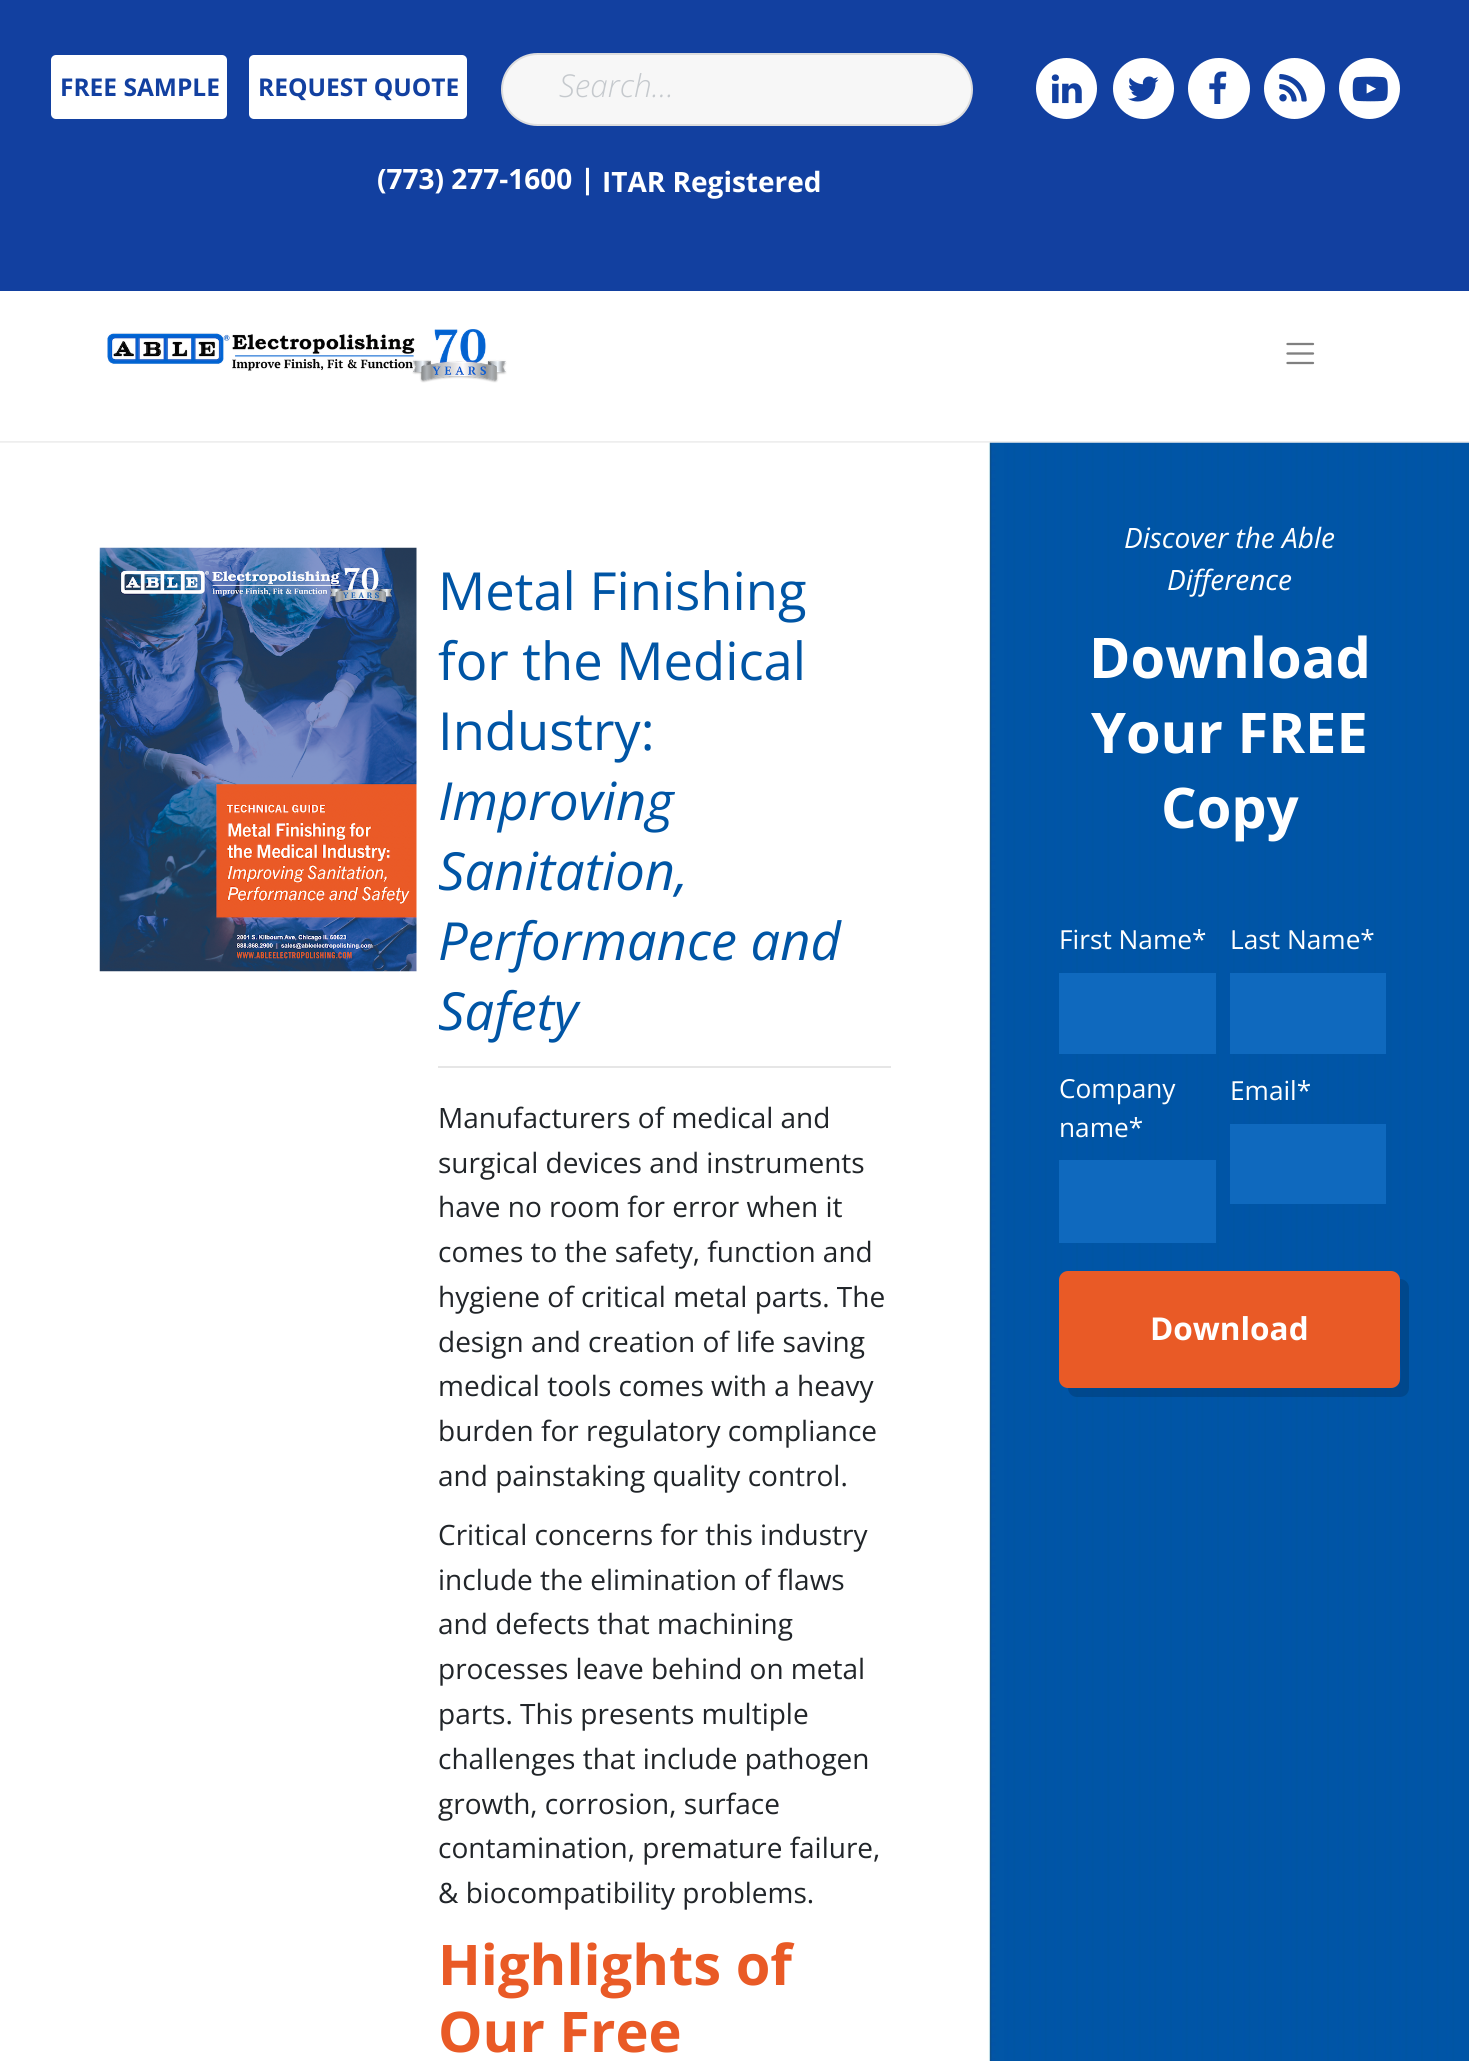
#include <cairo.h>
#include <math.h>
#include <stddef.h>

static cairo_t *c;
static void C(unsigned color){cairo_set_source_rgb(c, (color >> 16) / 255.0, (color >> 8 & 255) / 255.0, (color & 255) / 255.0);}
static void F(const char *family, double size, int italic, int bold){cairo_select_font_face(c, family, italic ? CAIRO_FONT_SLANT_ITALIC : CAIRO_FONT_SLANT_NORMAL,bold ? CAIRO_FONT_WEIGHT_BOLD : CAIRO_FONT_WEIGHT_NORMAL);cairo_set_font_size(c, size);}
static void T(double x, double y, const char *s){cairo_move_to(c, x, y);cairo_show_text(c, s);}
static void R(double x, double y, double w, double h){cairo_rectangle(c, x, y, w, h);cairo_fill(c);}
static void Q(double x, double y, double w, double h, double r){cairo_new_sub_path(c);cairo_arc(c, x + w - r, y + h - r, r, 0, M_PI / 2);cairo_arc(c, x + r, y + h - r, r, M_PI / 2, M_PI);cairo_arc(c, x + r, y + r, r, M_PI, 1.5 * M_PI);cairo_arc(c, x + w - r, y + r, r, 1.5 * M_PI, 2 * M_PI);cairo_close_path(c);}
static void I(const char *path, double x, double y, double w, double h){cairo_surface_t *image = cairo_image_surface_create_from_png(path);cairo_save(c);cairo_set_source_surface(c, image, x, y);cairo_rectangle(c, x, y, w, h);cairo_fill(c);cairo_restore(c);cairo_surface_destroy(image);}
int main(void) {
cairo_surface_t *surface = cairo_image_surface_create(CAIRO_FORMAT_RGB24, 1469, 2061);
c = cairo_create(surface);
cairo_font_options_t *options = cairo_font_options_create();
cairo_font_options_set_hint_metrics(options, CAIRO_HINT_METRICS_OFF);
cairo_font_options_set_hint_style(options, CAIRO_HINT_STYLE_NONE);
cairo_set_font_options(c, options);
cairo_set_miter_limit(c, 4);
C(0xffffff);
cairo_paint(c);
C(0xeeeeee);
R(0,441,1469,2);
C(0x1240a0);
R(0,0,1469,291);
C(0xffffff);
Q(50,54,178,66,6);
cairo_fill_preserve(c);
C(0x1240a0);
cairo_stroke(c);
F("Open Sans",24.5,0,1);
T(60,96,"FREE SAMPLE");
C(0xffffff);
Q(248,54,220,66,6);
cairo_fill_preserve(c);
C(0x1240a0);
cairo_stroke(c);
T(258,96,"REQUEST QUOTE");
C(0xf7f7f7);
Q(502,54,470,71,35.5);
cairo_fill_preserve(c);
C(0xdddddd);
cairo_stroke(c);
F("Open Sans Light",31.5,1,0);
C(0xc5c9cd);
T(559,97,"Search…");
C(0xffffff);
cairo_new_path(c);
cairo_arc(c,1066.5,88.5,30.5,0,2 * M_PI);
cairo_fill(c);
I("1.png",1051,74,31,30);
cairo_arc(c,1143.5,88.5,30.5,0,2 * M_PI);
cairo_fill(c);
I("2.png",1128,76,31,26);
Q(1188,58,62,61,30.5);
cairo_fill(c);
I("3.png",1209,71,18,33);
cairo_arc(c,1294.5,88.5,30.5,0,2 * M_PI);
cairo_fill(c);
I("4.png",1279,74,28,28);
cairo_arc(c,1369.5,88.5,30.5,0,2 * M_PI);
cairo_fill(c);
I("5.png",1352,76,36,26);
F("Open Sans",28,0,1);
T(377,189,"(773) 277-1600 |");
T(602,192,"ITAR Registered");
I("6.png",107,329,400,54);
cairo_new_path(c);
cairo_move_to(c,1287.5,344);
cairo_line_to(c,1313,344);
cairo_move_to(c,1287.5,353.5);
cairo_line_to(c,1313,353.5);
cairo_move_to(c,1287.5,363);
cairo_line_to(c,1313,363);
C(0x808080);
cairo_set_line_width(c,2.3);
cairo_set_line_cap(c,CAIRO_LINE_CAP_ROUND);
cairo_stroke(c);
I("7.png",0,442,1469,1619);
I("8.png",99,547,318,425);
F("Open Sans",52.5,0,0);
C(0x0055a5);
T(438,610,"Metal Finishing");
T(438,680,"for the Medical");
T(438,750,"Industry:");
F("Open Sans",52.5,1,0);
T(438,820,"Improving");
T(438,890,"Sanitation,");
T(438,960,"Performance and");
T(438,1030,"Safety");
C(0xe6e6e6);
R(438,1066,453,2);
F("Open Sans",28,0,0);
C(0x212529);
T(438,1128,"Manufacturers of medical and");
T(438,1173,"surgical devices and instruments");
T(438,1217,"have no room for error when it");
T(438,1262,"comes to the safety, function and");
T(438,1307,"hygiene of critical metal parts. The");
T(438,1352,"design and creation of life saving");
T(438,1396,"medical tools comes with a heavy");
T(438,1441,"burden for regulatory compliance");
T(438,1486,"and painstaking quality control.");
T(438,1545,"Critical concerns for this industry");
T(438,1590,"include the elimination of flaws");
T(438,1634,"and defects that machining");
T(438,1679,"processes leave behind on metal");
T(438,1724,"parts. This presents multiple");
T(438,1769,"challenges that include pathogen");
T(438,1814,"growth, corrosion, surface");
T(438,1858,"contamination, premature failure,");
T(438,1903,"& biocompatibility problems.");
F("Open Sans",56,0,1);
C(0xe95a26);
T(438,1985,"Highlights of");
T(438,2052,"Our Free");
F("Open Sans",28,1,0);
C(0xffffff);
T(1124,548,"Discover the Able");
T(1167,590,"Difference");
F("Open Sans",56,0,1);
T(1089,678,"Download");
T(1091,753,"Your FREE");
T(1161,828,"Copy");
F("Open Sans",26.25,0,0);
T(1059,949,"First Name*");
C(0x0f69be);
R(1059,973,157,81);
C(0xffffff);
T(1230,949,"Last Name*");
C(0x0f69be);
R(1230,973,156,81);
C(0xffffff);
T(1059,1098,"Company");
T(1059,1137,"name*");
C(0x0f69be);
R(1059,1160,157,83);
C(0xffffff);
T(1230,1100,"Email*");
C(0x0f69be);
R(1230,1124,156,80);
cairo_set_source_rgba(c,0,0,0,0.15);
cairo_new_path(c);
cairo_move_to(c,1068,1388);
cairo_curve_to(c,1068,1393,1072,1397,1077,1397);
cairo_line_to(c,1400,1397);
cairo_curve_to(c,1405,1397,1409,1393,1409,1388);
cairo_line_to(c,1409,1288);
cairo_curve_to(c,1409,1283,1405,1279,1400,1279);
cairo_line_to(c,1400,1362);
cairo_curve_to(c,1400,1369,1404,1388,1391,1388);
cairo_close_path(c);
cairo_fill(c);
C(0xe95a26);
Q(1059,1271,341,117,9);
cairo_fill(c);
F("Open Sans",31.5,0,1);
C(0xffffff);
T(1150,1340,"Download");
cairo_surface_write_to_png(surface, "o.png");
cairo_font_options_destroy(options);
cairo_destroy(c);
cairo_surface_destroy(surface);
return 0;
}
